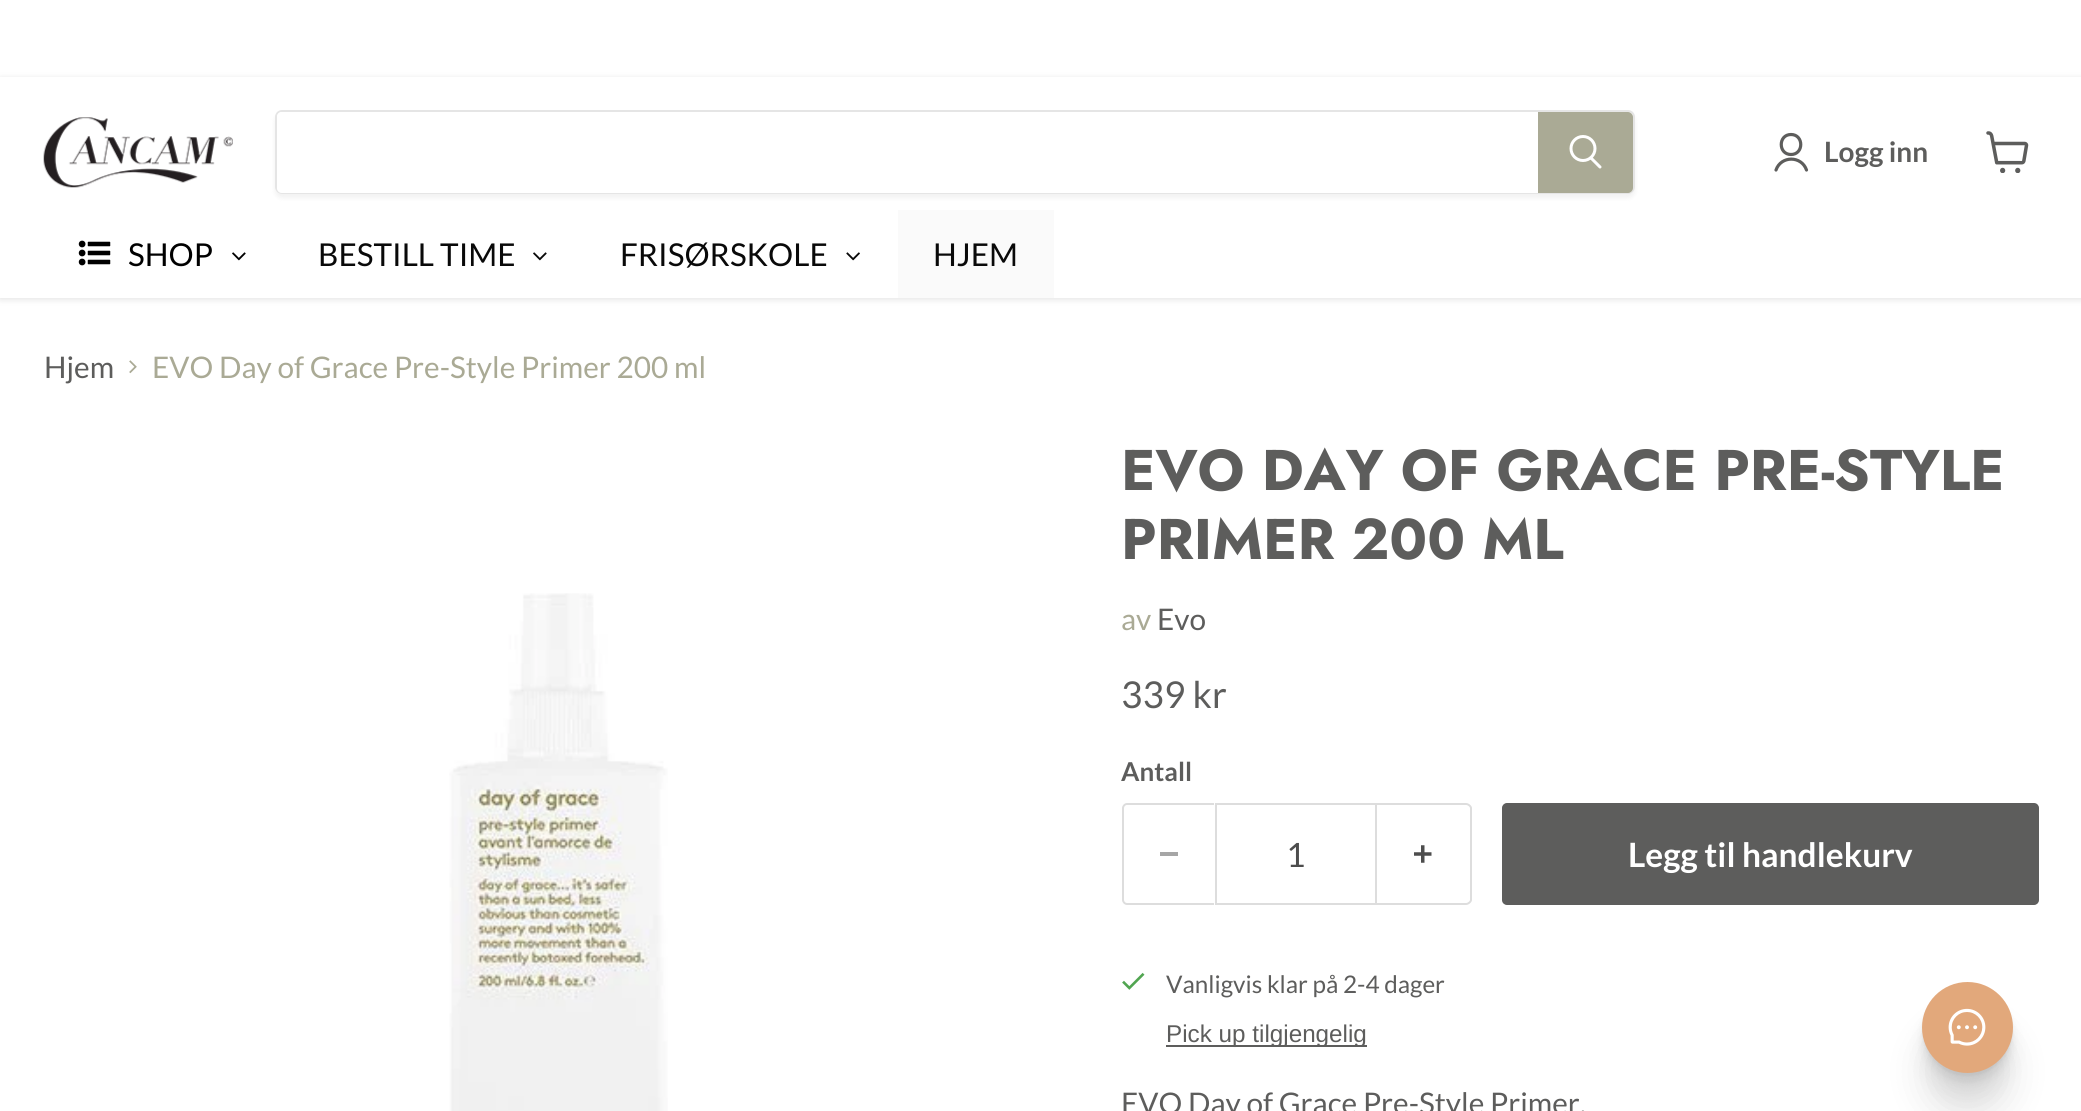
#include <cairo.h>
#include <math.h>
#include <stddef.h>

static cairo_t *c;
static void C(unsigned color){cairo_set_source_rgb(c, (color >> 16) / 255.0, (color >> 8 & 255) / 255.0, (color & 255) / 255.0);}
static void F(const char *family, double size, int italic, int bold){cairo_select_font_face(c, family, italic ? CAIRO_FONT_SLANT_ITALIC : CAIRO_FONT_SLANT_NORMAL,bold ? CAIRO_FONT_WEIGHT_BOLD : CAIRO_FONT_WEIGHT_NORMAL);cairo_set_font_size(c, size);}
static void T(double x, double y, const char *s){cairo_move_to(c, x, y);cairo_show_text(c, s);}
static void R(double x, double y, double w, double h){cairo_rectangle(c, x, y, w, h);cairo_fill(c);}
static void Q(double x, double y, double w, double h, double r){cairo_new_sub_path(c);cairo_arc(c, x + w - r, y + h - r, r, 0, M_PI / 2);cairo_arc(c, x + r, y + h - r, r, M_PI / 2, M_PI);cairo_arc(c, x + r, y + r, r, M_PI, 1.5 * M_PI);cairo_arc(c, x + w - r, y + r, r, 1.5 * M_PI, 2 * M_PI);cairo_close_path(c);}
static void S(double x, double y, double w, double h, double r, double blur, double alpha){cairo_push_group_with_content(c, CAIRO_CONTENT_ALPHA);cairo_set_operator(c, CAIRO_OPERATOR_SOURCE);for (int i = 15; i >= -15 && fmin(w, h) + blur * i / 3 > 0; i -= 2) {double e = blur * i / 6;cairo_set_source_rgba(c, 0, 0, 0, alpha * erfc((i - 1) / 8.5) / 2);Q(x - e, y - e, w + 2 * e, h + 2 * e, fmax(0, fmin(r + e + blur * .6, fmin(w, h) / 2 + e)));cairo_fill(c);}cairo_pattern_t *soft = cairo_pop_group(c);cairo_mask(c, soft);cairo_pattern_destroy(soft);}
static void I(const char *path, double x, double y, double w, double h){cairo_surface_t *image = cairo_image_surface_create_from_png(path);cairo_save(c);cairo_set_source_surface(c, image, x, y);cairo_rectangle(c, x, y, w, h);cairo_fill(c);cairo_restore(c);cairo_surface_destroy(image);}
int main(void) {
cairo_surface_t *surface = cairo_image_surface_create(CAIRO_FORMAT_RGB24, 2081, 1111);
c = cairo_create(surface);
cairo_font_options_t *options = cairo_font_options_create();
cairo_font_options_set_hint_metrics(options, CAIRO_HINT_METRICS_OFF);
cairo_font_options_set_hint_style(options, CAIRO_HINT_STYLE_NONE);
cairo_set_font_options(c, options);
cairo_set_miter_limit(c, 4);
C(0xffffff);
cairo_paint(c);
C(0x808080);
S(0,79,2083,220,0,3.5,.25);
C(0xffffff);
R(0,77,2081,221);
I("1.png",43,117,190,71);
cairo_save(c);
cairo_set_fill_rule(c,CAIRO_FILL_RULE_EVEN_ODD);
cairo_new_path(c);
cairo_move_to(c,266,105);
cairo_line_to(c,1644,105);
cairo_line_to(c,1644,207);
cairo_line_to(c,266,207);
cairo_close_path(c);
cairo_move_to(c,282,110);
cairo_line_to(c,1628,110);
cairo_curve_to(c,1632,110,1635,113,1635,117);
cairo_line_to(c,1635,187);
cairo_curve_to(c,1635,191,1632,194,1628,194);
cairo_line_to(c,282,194);
cairo_curve_to(c,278,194,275,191,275,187);
cairo_line_to(c,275,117);
cairo_curve_to(c,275,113,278,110,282,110);
cairo_close_path(c);
cairo_clip(c);
C(0x808080);
S(275,114,1360,84,7,2.5,.11);
cairo_restore(c);
Q(276,111,1358,82,6);
cairo_set_source_rgba(c,0.502,0.502,0.502,0.2);
cairo_stroke(c);
C(0xffffff);
cairo_new_path(c);
cairo_move_to(c,282,112);
cairo_line_to(c,1538,112);
cairo_line_to(c,1538,193);
cairo_line_to(c,282,193);
cairo_curve_to(c,279,193,277,191,277,188);
cairo_line_to(c,277,117);
cairo_curve_to(c,277,114,279,112,282,112);
cairo_close_path(c);
cairo_fill(c);
C(0xaaaa95);
cairo_new_path(c);
cairo_move_to(c,1539,113);
cairo_line_to(c,1628,113);
cairo_curve_to(c,1630,113,1632,115,1632,117);
cairo_line_to(c,1632,188);
cairo_curve_to(c,1632,190,1630,192,1628,192);
cairo_line_to(c,1539,192);
cairo_close_path(c);
cairo_fill_preserve(c);
cairo_stroke(c);
cairo_new_path(c);
cairo_move_to(c,1600,167);
cairo_line_to(c,1591.5,158.5);
C(0xffffff);
cairo_set_line_width(c,3);
cairo_set_line_cap(c,CAIRO_LINE_CAP_ROUND);
cairo_stroke(c);
cairo_arc(c,1583,148.5,12,0,2 * M_PI);
cairo_set_line_cap(c,CAIRO_LINE_CAP_BUTT);
cairo_stroke(c);
cairo_new_path(c);
cairo_move_to(c,1791,154.5);
cairo_curve_to(c,1804,154.5,1804,134.5,1791,134.5);
cairo_curve_to(c,1778,134.5,1778,154.5,1791,154.5);
cairo_close_path(c);
cairo_move_to(c,1806.5,170);
cairo_curve_to(c,1801.5,155.5,1781,155.5,1776,170);
C(0x5d5d5c);
cairo_set_line_width(c,3.2);
cairo_set_line_cap(c,CAIRO_LINE_CAP_ROUND);
cairo_set_line_join(c,CAIRO_LINE_JOIN_ROUND);
cairo_stroke(c);
F("Lato",28,0,1);
T(1824,162,"Logg inn");
I("2.png",1986,131,43,42);
C(0xfafafa);
R(898,210,156,88);
I("3.png",78,240,33,26);
F("Lato",31.5,0,0);
C(0x000000);
T(128,266,"SHOP");
I("4.png",232,252,14,9);
C(0x090909);
T(318,266,"BESTILL TIME");
I("5.png",533,252,14,9);
T(620,266,"FRISØRSKOLE");
I("6.png",846,252,14,9);
T(933,266,"HJEM");
F("Lato",29.75,0,0);
C(0x5d5d5c);
T(44,378,"Hjem");
I("7.png",129,360,8,14);
C(0xaaaa95);
T(152,378,"EVO Day of Grace Pre-Style Primer 200 ml");
I("8.png",449,593,219,518);
F("Jost",57.25,0,1);
C(0x5d5d5c);
T(1121,490,"EVO DAY OF GRACE PRE-STYLE");
T(1121,559,"PRIMER 200 ML");
F("Lato",29.75,0,0);
C(0xaaaa95);
T(1121,630,"av");
C(0x5d5d5c);
T(1157,630,"Evo");
F("Lato",37,0,0);
T(1121,708,"339 kr");
F("Lato",26,0,1);
T(1121,781,"Antall");
C(0xdddddd);
cairo_set_fill_rule(c,CAIRO_FILL_RULE_EVEN_ODD);
cairo_new_path(c);
cairo_move_to(c,1127,803);
cairo_line_to(c,1214,803);
cairo_line_to(c,1214,905);
cairo_line_to(c,1127,905);
cairo_curve_to(c,1124,905,1122,902,1122,900);
cairo_line_to(c,1122,808);
cairo_curve_to(c,1122,806,1124,803,1127,803);
cairo_close_path(c);
cairo_move_to(c,1127,805);
cairo_line_to(c,1214,805);
cairo_line_to(c,1214,903);
cairo_line_to(c,1127,903);
cairo_curve_to(c,1125,903,1124,901,1124,900);
cairo_line_to(c,1124,808);
cairo_curve_to(c,1124,807,1125,805,1127,805);
cairo_close_path(c);
cairo_fill(c);
C(0xa6a6a6);
R(1160,852,18,4);
cairo_rectangle(c,1216,804,160,100);
C(0xdddddd);
cairo_set_line_width(c,2);
cairo_set_line_cap(c,CAIRO_LINE_CAP_BUTT);
cairo_set_line_join(c,CAIRO_LINE_JOIN_MITER);
cairo_stroke(c);
F("Lato",33.5,0,0);
C(0x4d4d4d);
T(1286,867,"1");
C(0xdddddd);
cairo_new_path(c);
cairo_move_to(c,1377,803);
cairo_line_to(c,1466,803);
cairo_curve_to(c,1469,803,1472,806,1472,808);
cairo_line_to(c,1472,900);
cairo_curve_to(c,1472,902,1469,905,1466,905);
cairo_line_to(c,1377,905);
cairo_close_path(c);
cairo_move_to(c,1377,805);
cairo_line_to(c,1466,805);
cairo_curve_to(c,1468,805,1470,807,1470,808);
cairo_line_to(c,1470,900);
cairo_curve_to(c,1470,901,1468,903,1466,903);
cairo_line_to(c,1377,903);
cairo_close_path(c);
cairo_fill(c);
I("9.png",1414,845,18,18);
C(0x5d5d5c);
Q(1503,804,535,100,4);
cairo_fill_preserve(c);
cairo_stroke(c);
F("Lato",33.5,0,1);
C(0xffffff);
T(1628,867,"Legg til handlekurv");
I("10.png",1122,972,23,18);
F("Lato",24.25,0,0);
C(0x5d5d5c);
T(1166,993,"Vanligvis klar på 2-4 dager");
R(1166,1045,201,2);
F("Liberation Sans",24.25,0,0);
T(1166,1042,"Pick up tilgjengelig");
F("Lato",29.75,0,0);
T(1121,1114,"EVO Day of Grace Pre-Style Primer.");
C(0x000000);
S(1922,1026,91,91,45.5,17.5,.1);
S(1922,1005,91,91,45.5,8.5,.06);
S(1922,992,91,91,45.5,3.5,.06);
S(1922,985,91,91,45.5,1,.04);
C(0xe2a87b);
cairo_arc(c,1967.5,1027.5,45.5,0,2 * M_PI);
cairo_fill(c);
I("11.png",1948,1008,38,38);
cairo_surface_write_to_png(surface, "o.png");
cairo_font_options_destroy(options);
cairo_destroy(c);
cairo_surface_destroy(surface);
return 0;
}
